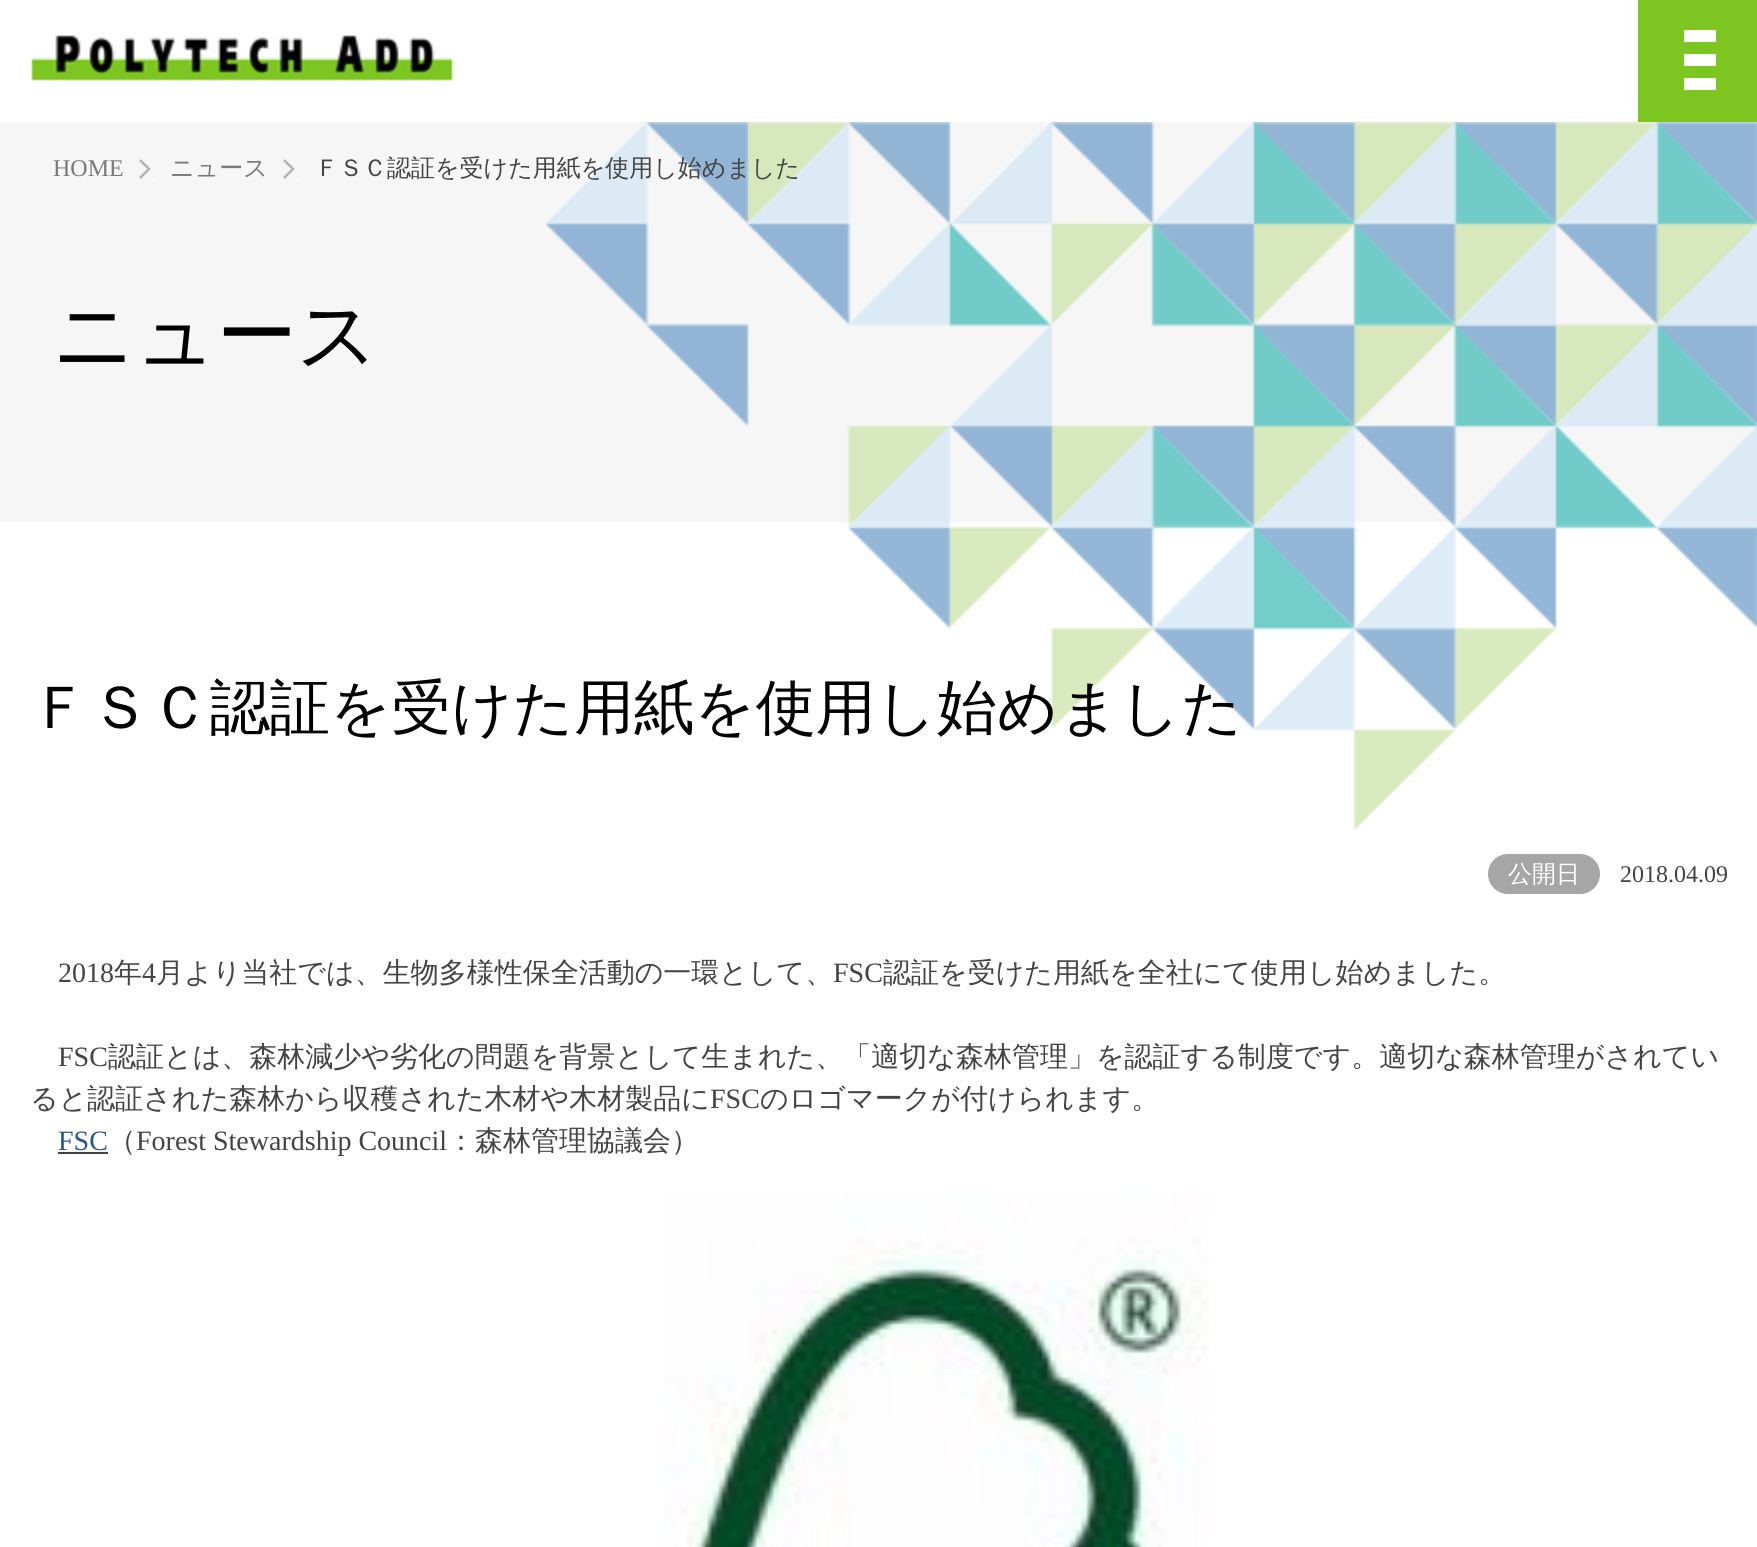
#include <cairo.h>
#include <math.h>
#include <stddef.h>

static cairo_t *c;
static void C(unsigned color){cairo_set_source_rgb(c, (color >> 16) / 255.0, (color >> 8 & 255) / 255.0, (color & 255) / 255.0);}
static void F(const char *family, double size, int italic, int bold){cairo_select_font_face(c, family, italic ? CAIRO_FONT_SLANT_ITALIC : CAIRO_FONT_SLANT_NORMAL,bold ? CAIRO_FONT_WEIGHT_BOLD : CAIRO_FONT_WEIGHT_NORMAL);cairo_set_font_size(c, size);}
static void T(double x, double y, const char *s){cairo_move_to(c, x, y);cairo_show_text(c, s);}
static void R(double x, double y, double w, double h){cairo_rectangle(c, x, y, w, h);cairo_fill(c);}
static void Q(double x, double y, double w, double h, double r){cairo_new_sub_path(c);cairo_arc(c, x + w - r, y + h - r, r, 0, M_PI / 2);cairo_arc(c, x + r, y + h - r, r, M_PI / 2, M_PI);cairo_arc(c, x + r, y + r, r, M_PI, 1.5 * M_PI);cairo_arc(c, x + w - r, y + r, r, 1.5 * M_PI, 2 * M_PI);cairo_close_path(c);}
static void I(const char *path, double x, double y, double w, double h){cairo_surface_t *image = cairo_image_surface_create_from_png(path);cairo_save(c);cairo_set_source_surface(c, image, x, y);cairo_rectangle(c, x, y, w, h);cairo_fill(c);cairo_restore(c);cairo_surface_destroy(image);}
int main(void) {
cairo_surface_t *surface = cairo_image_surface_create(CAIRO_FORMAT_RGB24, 1757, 1547);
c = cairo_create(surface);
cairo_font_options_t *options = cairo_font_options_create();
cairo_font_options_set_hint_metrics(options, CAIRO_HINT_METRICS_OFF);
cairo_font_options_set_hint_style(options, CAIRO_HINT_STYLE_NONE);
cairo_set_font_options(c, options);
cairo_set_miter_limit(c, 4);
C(0xffffff);
cairo_paint(c);
I("1.png",31,35,422,46);
C(0x7dc621);
R(1638,0,119,122);
C(0xffffff);
R(1684,30,32,12);
R(1684,54,32,12);
R(1684,78,32,12);
C(0xf6f6f6);
R(0,122,1757,400);
F("Liberation Serif",24,0,0);
C(0x7a7a7a);
T(53,176,"HOME");
I("2.png",139,159,15,21);
F("WenQuanYi Zen Hei Medium",24,0,0);
T(170,176,"ニュース");
I("2.png",283,159,15,21);
I("3.png",546,122,1211,708);
C(0x444444);
T(315,176,"ＦＳＣ認証を受けた用紙を使用し始めました");
F("WenQuanYi Zen Hei Medium",80,0,0);
C(0x000000);
T(53,362,"ニュース");
F("WenQuanYi Zen Hei Medium",60,0,0);
T(30,728,"ＦＳＣ認証を受けた用紙を使用し始めました");
C(0xa6a6a6);
Q(1488,854,112,40,20);
cairo_fill(c);
F("WenQuanYi Zen Hei Medium",24,0,0);
C(0xffffff);
T(1508,882,"公開日");
F("Liberation Serif",24,0,0);
C(0x444444);
T(1620,882,"2018.04.09");
F("Liberation Serif",28,0,0);
T(58,982,"2018");
F("WenQuanYi Zen Hei Medium",28,0,0);
T(114,982,"年");
F("Liberation Serif",28,0,0);
T(142,982,"4");
F("WenQuanYi Zen Hei Medium",28,0,0);
T(156,982,"月より当社では、生物多様性保全活動の一環として、");
F("Liberation Serif",28,0,0);
T(833,982,"FSC");
F("WenQuanYi Zen Hei Medium",28,0,0);
T(883,982,"認証を受けた用紙を全社にて使用し始めました。");
F("Liberation Serif",28,0,0);
T(58,1066,"FSC");
F("WenQuanYi Zen Hei Medium",28,0,0);
T(108,1066,"認証とは、森林減少や劣化の問題を背景として生まれた、「適切な森林管理」を認証する制度です。適切な森林管理がされてい");
T(30,1108,"ると認証された森林から収穫された木材や木材製品に");
F("Liberation Serif",28,0,0);
T(710,1108,"FSC");
F("WenQuanYi Zen Hei Medium",28,0,0);
T(760,1108,"のロゴマークが付けられます。");
F("Liberation Serif",28,0,0);
C(0x265590);
T(58,1150,"FSC");
C(0x444444);
R(58,1152,50,2);
F("WenQuanYi Zen Hei Medium",28,0,0);
T(108,1150,"（");
F("Liberation Serif",28,0,0);
T(136,1150,"Forest Stewardship Council");
F("WenQuanYi Zen Hei Medium",28,0,0);
T(447,1150,"：森林管理協議会）");
I("4.png",664,1192,545,355);
cairo_surface_write_to_png(surface, "o.png");
cairo_font_options_destroy(options);
cairo_destroy(c);
cairo_surface_destroy(surface);
return 0;
}
